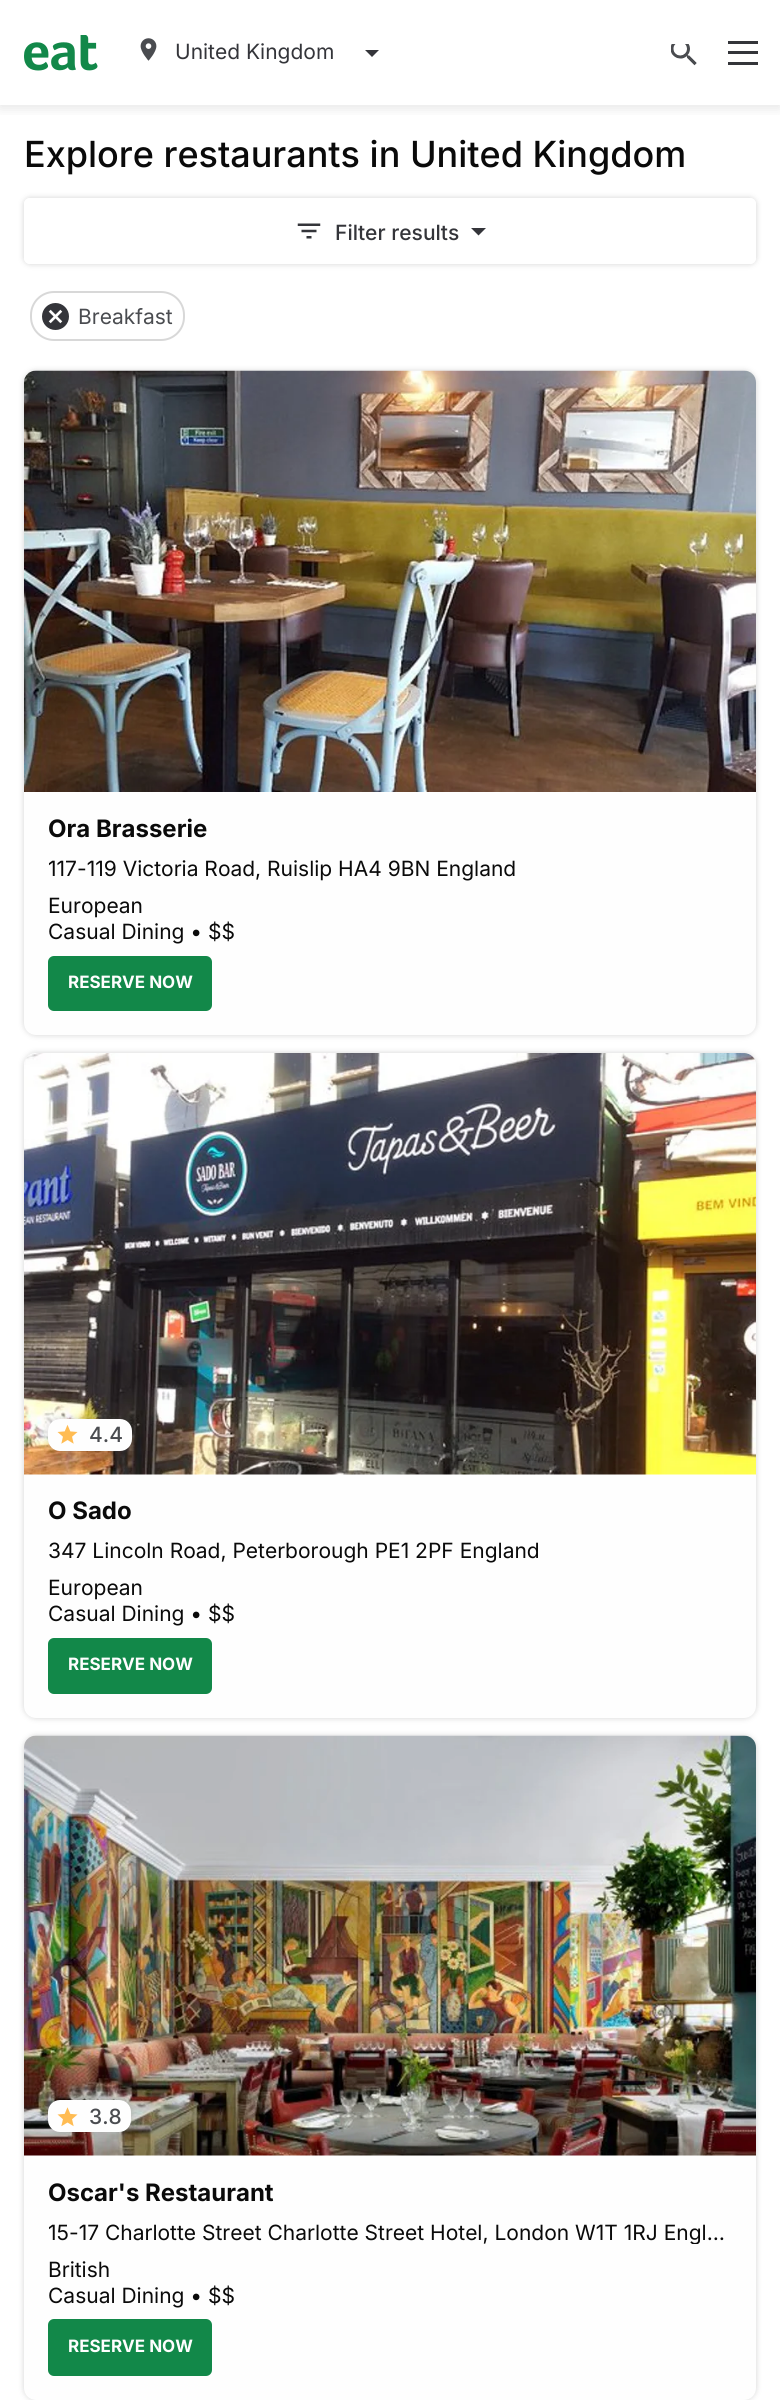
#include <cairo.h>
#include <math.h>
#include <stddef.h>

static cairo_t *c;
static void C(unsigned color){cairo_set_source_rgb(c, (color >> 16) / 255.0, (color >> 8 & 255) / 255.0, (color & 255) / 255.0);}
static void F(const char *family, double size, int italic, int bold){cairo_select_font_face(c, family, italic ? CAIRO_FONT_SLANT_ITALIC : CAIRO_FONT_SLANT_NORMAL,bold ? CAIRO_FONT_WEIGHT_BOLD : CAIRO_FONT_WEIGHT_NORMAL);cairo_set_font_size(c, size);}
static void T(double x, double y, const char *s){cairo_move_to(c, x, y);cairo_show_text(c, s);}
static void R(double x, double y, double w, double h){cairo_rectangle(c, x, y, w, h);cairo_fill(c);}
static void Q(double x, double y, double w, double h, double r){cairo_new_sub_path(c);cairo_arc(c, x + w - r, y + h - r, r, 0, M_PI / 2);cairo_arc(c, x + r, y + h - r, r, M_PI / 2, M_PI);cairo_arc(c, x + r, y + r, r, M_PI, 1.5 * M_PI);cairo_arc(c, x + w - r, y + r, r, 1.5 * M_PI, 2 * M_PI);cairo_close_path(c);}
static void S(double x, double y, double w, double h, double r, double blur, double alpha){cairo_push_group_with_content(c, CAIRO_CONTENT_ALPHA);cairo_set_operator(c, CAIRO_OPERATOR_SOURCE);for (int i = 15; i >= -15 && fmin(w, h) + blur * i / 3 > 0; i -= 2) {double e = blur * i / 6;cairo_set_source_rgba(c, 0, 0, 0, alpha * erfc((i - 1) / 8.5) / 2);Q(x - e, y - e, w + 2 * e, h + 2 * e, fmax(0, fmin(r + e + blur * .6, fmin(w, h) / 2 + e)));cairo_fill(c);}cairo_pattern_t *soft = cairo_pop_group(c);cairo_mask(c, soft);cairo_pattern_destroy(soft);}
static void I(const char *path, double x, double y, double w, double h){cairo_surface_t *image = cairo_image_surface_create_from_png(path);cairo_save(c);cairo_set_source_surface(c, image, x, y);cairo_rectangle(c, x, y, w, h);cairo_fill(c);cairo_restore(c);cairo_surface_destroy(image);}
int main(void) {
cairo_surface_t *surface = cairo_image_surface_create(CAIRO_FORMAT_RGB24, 780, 2400);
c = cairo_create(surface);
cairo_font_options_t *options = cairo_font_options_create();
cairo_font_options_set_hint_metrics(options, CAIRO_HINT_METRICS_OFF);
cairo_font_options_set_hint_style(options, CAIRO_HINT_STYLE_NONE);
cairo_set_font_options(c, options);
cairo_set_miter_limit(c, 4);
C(0xffffff);
cairo_paint(c);
cairo_save(c);
cairo_rectangle(c,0,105,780,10);
cairo_clip(c);
C(0x505050);
S(0,3,780,105,0,6,.15);
cairo_restore(c);
I("1.png",24,35,74,36);
I("2.png",140,38,17,23);
F("Inter",21,0,0);
C(0x34353a);
T(175,59,"United Kingdom");
cairo_save(c);
cairo_rectangle(c,365,50,15,7);
cairo_clip(c);
cairo_new_path(c);
cairo_move_to(c,364.5,49.5);
cairo_line_to(c,372,57);
cairo_line_to(c,379.5,49.5);
cairo_close_path(c);
cairo_fill(c);
cairo_restore(c);
I("3.png",671,44,26,22);
R(728,62,30,3);
R(728,51,30,3);
R(728,41,30,3);
F("Inter Medium",36,0,0);
C(0x0a0a0a);
T(24,167,"Explore restaurants in United Kingdom");
cairo_save(c);
cairo_set_fill_rule(c,CAIRO_FILL_RULE_EVEN_ODD);
cairo_new_path(c);
cairo_move_to(c,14,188);
cairo_line_to(c,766,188);
cairo_line_to(c,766,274);
cairo_line_to(c,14,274);
cairo_close_path(c);
cairo_move_to(c,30,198);
cairo_line_to(c,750,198);
cairo_curve_to(c,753.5,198,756,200.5,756,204);
cairo_line_to(c,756,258);
cairo_curve_to(c,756,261.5,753.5,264,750,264);
cairo_line_to(c,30,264);
cairo_curve_to(c,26.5,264,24,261.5,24,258);
cairo_line_to(c,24,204);
cairo_curve_to(c,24,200.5,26.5,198,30,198);
cairo_close_path(c);
cairo_clip(c);
C(0x505050);
S(24,198,732,66,6,3,.25);
cairo_restore(c);
I("4.png",297,223,24,16);
F("Inter Medium",21,0,0);
C(0x34353a);
T(335,240,"Filter results");
cairo_new_path(c);
cairo_move_to(c,471,228);
cairo_line_to(c,478.5,235.5);
cairo_line_to(c,486,228);
cairo_close_path(c);
cairo_fill(c);
Q(31,292,153,48,23);
C(0xd8d8d8);
cairo_stroke(c);
I("5.png",42,303,27,27);
F("Inter",21,0,0);
C(0x4a4c50);
T(78,324,"Breakfast");
C(0x505050);
S(24,371,732,664,12,3,.25);
C(0xfefefe);
Q(24,371,732,664,12);
cairo_fill(c);
I("6.png",24,370,732,422);
F("Inter",24,0,1);
C(0x0a0a0a);
T(48,837,"Ora Brasserie");
F("Inter",21,0,0);
T(48,876,"117-119 Victoria Road, Ruislip HA4 9BN England");
T(48,913,"European");
T(48,939,"Casual Dining • $$");
C(0x128849);
Q(48,956,164,55,6);
cairo_fill(c);
F("Inter",17,0,1);
C(0xfefefe);
T(68,988,"RESERVE NOW");
C(0x505050);
S(24,1053,732,665,12,3,.25);
C(0xfefefe);
Q(24,1053,732,665,12);
cairo_fill(c);
I("7.png",24,1053,732,422);
C(0x505050);
S(48,1419,84,32,12,3,.25);
C(0xfefefe);
Q(48,1419,84,32,12);
cairo_fill(c);
I("8.png",57,1424,21,20);
F("Inter Medium",21,0,0);
C(0x4a4c50);
T(89,1442,"4.4");
F("Inter",24,0,1);
C(0x0a0a0a);
T(48,1519,"O Sado");
F("Inter",21,0,0);
T(48,1558,"347 Lincoln Road, Peterborough PE1 2PF England");
T(48,1595,"European");
T(48,1621,"Casual Dining • $$");
C(0x128849);
Q(48,1638,164,56,6);
cairo_fill(c);
F("Inter",17,0,1);
C(0xfefefe);
T(68,1670,"RESERVE NOW");
C(0x505050);
S(24,1736,732,664,12,3,.25);
C(0xfefefe);
Q(24,1736,732,664,12);
cairo_fill(c);
I("9.png",24,1735,732,421);
C(0x505050);
S(48,2100,83,32,12,3,.25);
C(0xfefefe);
Q(48,2100,83,32,12);
cairo_fill(c);
I("10.png",57,2107,21,20);
F("Inter Medium",21,0,0);
C(0x4a4c50);
T(89,2124,"3.8");
F("Inter",24,0,1);
C(0x0a0a0a);
T(48,2201,"Oscar's Restaurant");
cairo_save(c);
cairo_rectangle(c,48,2219,684,25);
cairo_clip(c);
F("Inter",21,0,0);
T(48,2240,"15-17 Charlotte Street Charlotte Street Hotel, London W1T 1RJ Engl…");
cairo_restore(c);
F("Inter",21,0,0);
T(48,2277,"British");
T(48,2303,"Casual Dining • $$");
C(0x128849);
Q(48,2319,164,57,6);
cairo_fill(c);
F("Inter",17,0,1);
C(0xfefefe);
T(68,2352,"RESERVE NOW");
cairo_surface_write_to_png(surface, "o.png");
cairo_font_options_destroy(options);
cairo_destroy(c);
cairo_surface_destroy(surface);
return 0;
}
